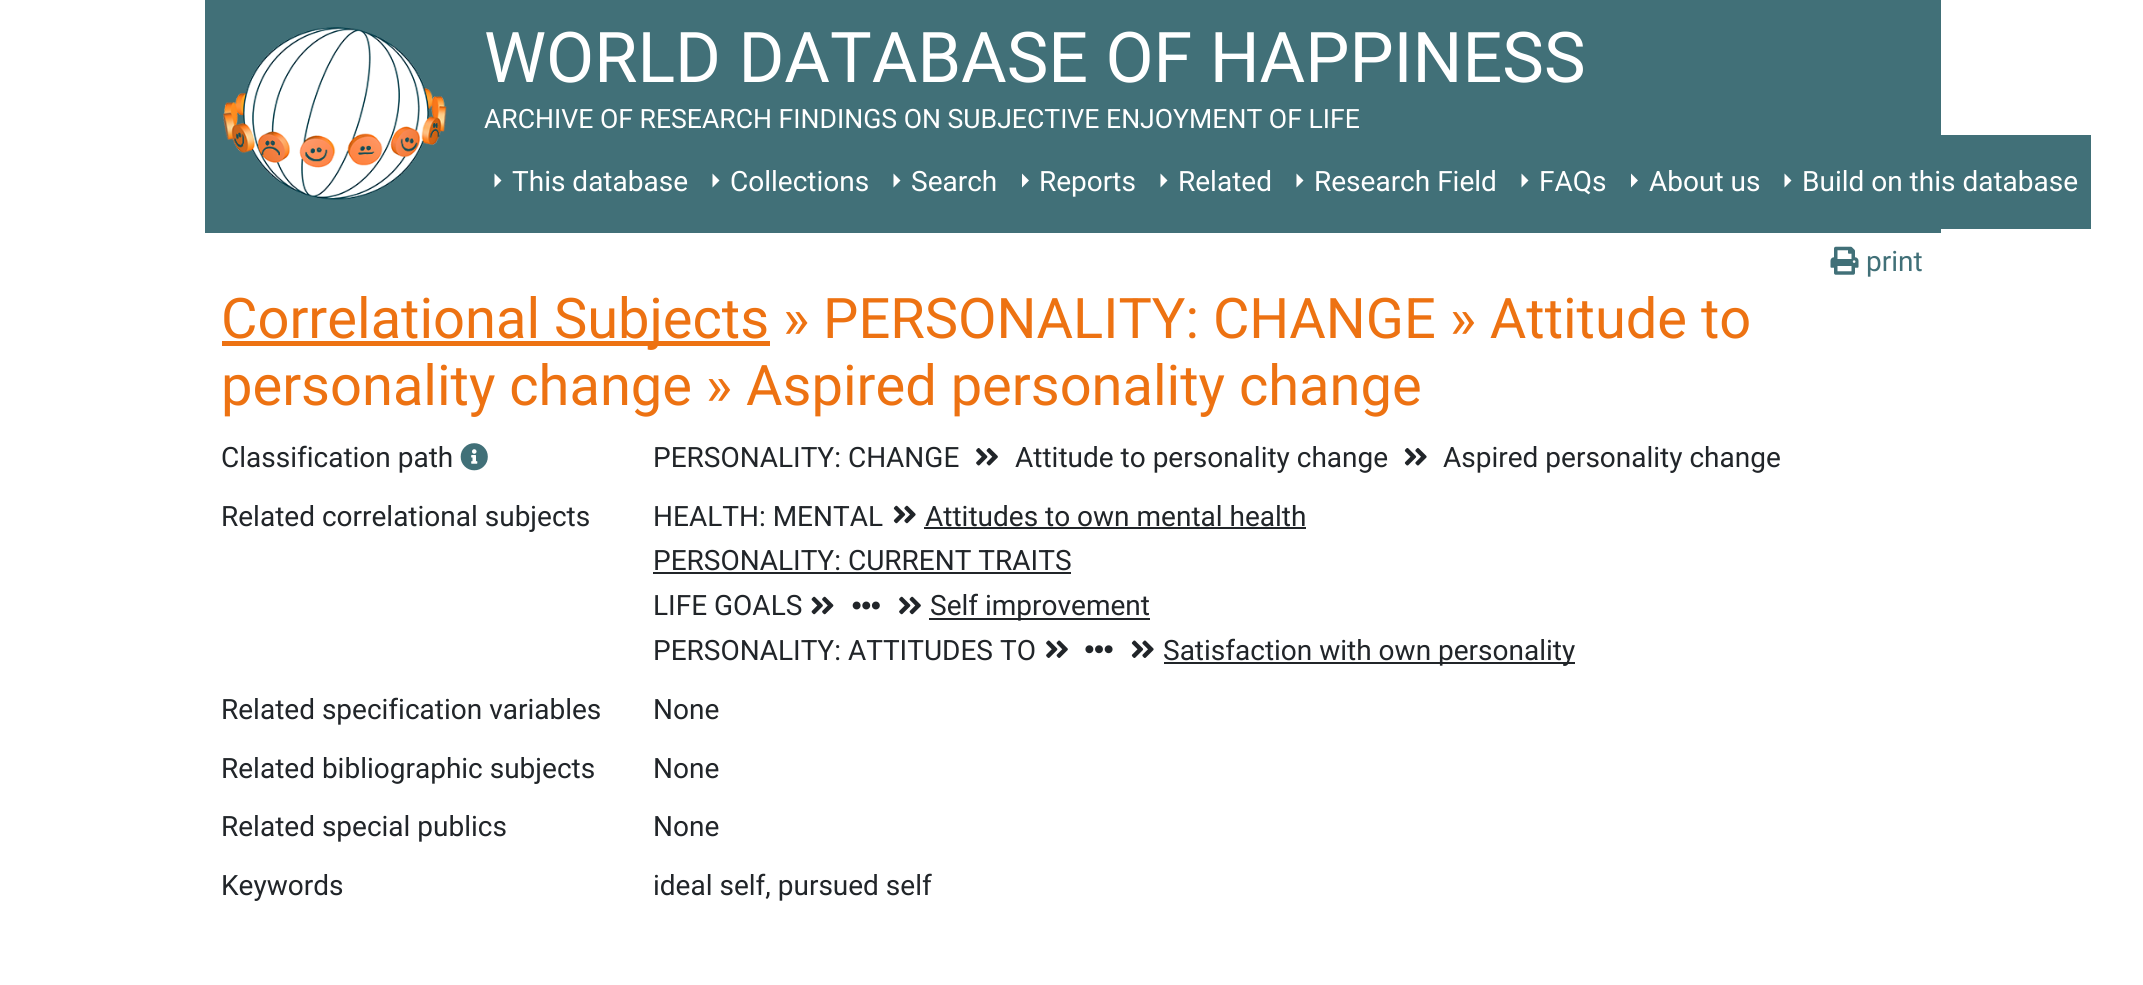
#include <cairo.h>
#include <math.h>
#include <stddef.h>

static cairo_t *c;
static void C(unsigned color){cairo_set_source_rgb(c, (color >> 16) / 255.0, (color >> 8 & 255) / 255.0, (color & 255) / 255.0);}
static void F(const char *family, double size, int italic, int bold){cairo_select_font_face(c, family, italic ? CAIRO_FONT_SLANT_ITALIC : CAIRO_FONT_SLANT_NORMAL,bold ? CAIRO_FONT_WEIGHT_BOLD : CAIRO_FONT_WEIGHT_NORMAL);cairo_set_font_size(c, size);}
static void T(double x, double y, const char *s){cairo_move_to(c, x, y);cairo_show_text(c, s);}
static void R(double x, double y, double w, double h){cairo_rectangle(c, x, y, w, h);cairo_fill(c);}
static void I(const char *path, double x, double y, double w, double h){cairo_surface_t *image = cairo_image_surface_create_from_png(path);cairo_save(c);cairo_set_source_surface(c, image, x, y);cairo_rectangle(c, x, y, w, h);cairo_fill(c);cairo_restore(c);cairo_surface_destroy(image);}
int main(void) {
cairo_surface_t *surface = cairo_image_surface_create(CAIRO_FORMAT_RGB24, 2143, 985);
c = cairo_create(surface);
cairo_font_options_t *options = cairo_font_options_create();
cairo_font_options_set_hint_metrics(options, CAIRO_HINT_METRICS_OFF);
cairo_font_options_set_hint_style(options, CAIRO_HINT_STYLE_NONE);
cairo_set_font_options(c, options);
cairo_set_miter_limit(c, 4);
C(0xffffff);
cairo_paint(c);
C(0x417078);
R(205,0,1736,233);
I("1.png",223,27,224,173);
F("Roboto",70,0,0);
C(0xffffff);
T(484,82,"WORLD DATABASE OF HAPPINESS");
F("Roboto",26.6,0,0);
T(484,128,"ARCHIVE OF RESEARCH FINDINGS ON SUBJECTIVE ENJOYMENT OF LIFE");
C(0x417078);
R(1941,135,150,94);
C(0xffffff);
cairo_new_path(c);
cairo_move_to(c,494.5,187.5);
cairo_line_to(c,494.5,173.5);
cairo_line_to(c,501.5,180.5);
cairo_close_path(c);
cairo_fill(c);
F("Roboto",28,0,0);
T(512,191,"This database");
cairo_new_path(c);
cairo_move_to(c,712.5,187.5);
cairo_line_to(c,712.5,173.5);
cairo_line_to(c,719.5,180.5);
cairo_close_path(c);
cairo_fill(c);
T(730,191,"Collections");
cairo_new_path(c);
cairo_move_to(c,893.5,187.5);
cairo_line_to(c,893.5,173.5);
cairo_line_to(c,900.5,180.5);
cairo_close_path(c);
cairo_fill(c);
T(911,191,"Search");
cairo_new_path(c);
cairo_move_to(c,1022,187.5);
cairo_line_to(c,1022,173.5);
cairo_line_to(c,1029,180.5);
cairo_close_path(c);
cairo_fill(c);
T(1039,191,"Reports");
cairo_new_path(c);
cairo_move_to(c,1160.5,187.5);
cairo_line_to(c,1160.5,173.5);
cairo_line_to(c,1167.5,180.5);
cairo_close_path(c);
cairo_fill(c);
T(1178,191,"Related");
cairo_new_path(c);
cairo_move_to(c,1296.5,187.5);
cairo_line_to(c,1296.5,173.5);
cairo_line_to(c,1303.5,180.5);
cairo_close_path(c);
cairo_fill(c);
T(1314,191,"Research Field");
cairo_new_path(c);
cairo_move_to(c,1521.5,187.5);
cairo_line_to(c,1521.5,173.5);
cairo_line_to(c,1528.5,180.5);
cairo_close_path(c);
cairo_fill(c);
T(1539,191,"FAQs");
cairo_new_path(c);
cairo_move_to(c,1631,187.5);
cairo_line_to(c,1631,173.5);
cairo_line_to(c,1638,180.5);
cairo_close_path(c);
cairo_fill(c);
T(1649,191,"About us");
cairo_new_path(c);
cairo_move_to(c,1784.5,187.5);
cairo_line_to(c,1784.5,173.5);
cairo_line_to(c,1791.5,180.5);
cairo_close_path(c);
cairo_fill(c);
T(1802,191,"Build on this database");
I("2.png",1830,246,29,29);
C(0x417078);
T(1866,271,"print");
C(0xed7212);
R(222,341,548,5);
F("Roboto",56,0,0);
T(221,338,"Correlational Subjects » PERSONALITY: CHANGE » Attitude to");
T(221,405,"personality change » Aspired personality change");
F("Roboto",28,0,0);
C(0x212529);
T(221,467,"Classification path");
I("3.png",460,443,28,28);
T(653,467,"PERSONALITY: CHANGE");
I("4.png",976,448,22,18);
T(1015,467,"Attitude to personality change");
I("5.png",1404,448,23,18);
T(1443,467,"Aspired personality change");
T(221,526,"Related correlational subjects");
T(653,526,"HEALTH: MENTAL");
I("6.png",893,505,23,19);
T(925,526,"Attitudes to own mental health");
R(924,527,382,2);
T(653,570,"PERSONALITY: CURRENT TRAITS");
R(653,572,418,2);
T(653,615,"LIFE GOALS");
I("7.png",811,596,23,19);
I("8.png",852,601,28,9);
I("9.png",899,596,22,19);
R(929,618,221,2);
T(930,615,"Self improvement");
T(653,660,"PERSONALITY: ATTITUDES TO");
I("10.png",1046,640,22,18);
I("11.png",1085,645,28,9);
I("12.png",1131,640,23,18);
R(1164,662,411,2);
T(1163,660,"Satisfaction with own personality");
T(221,719,"Related specification variables");
T(653,719,"None");
T(221,778,"Related bibliographic subjects");
T(653,778,"None");
T(221,836,"Related special publics");
T(653,836,"None");
T(221,895,"Keywords");
T(653,895,"ideal self, pursued self");
cairo_surface_write_to_png(surface, "o.png");
cairo_font_options_destroy(options);
cairo_destroy(c);
cairo_surface_destroy(surface);
return 0;
}
